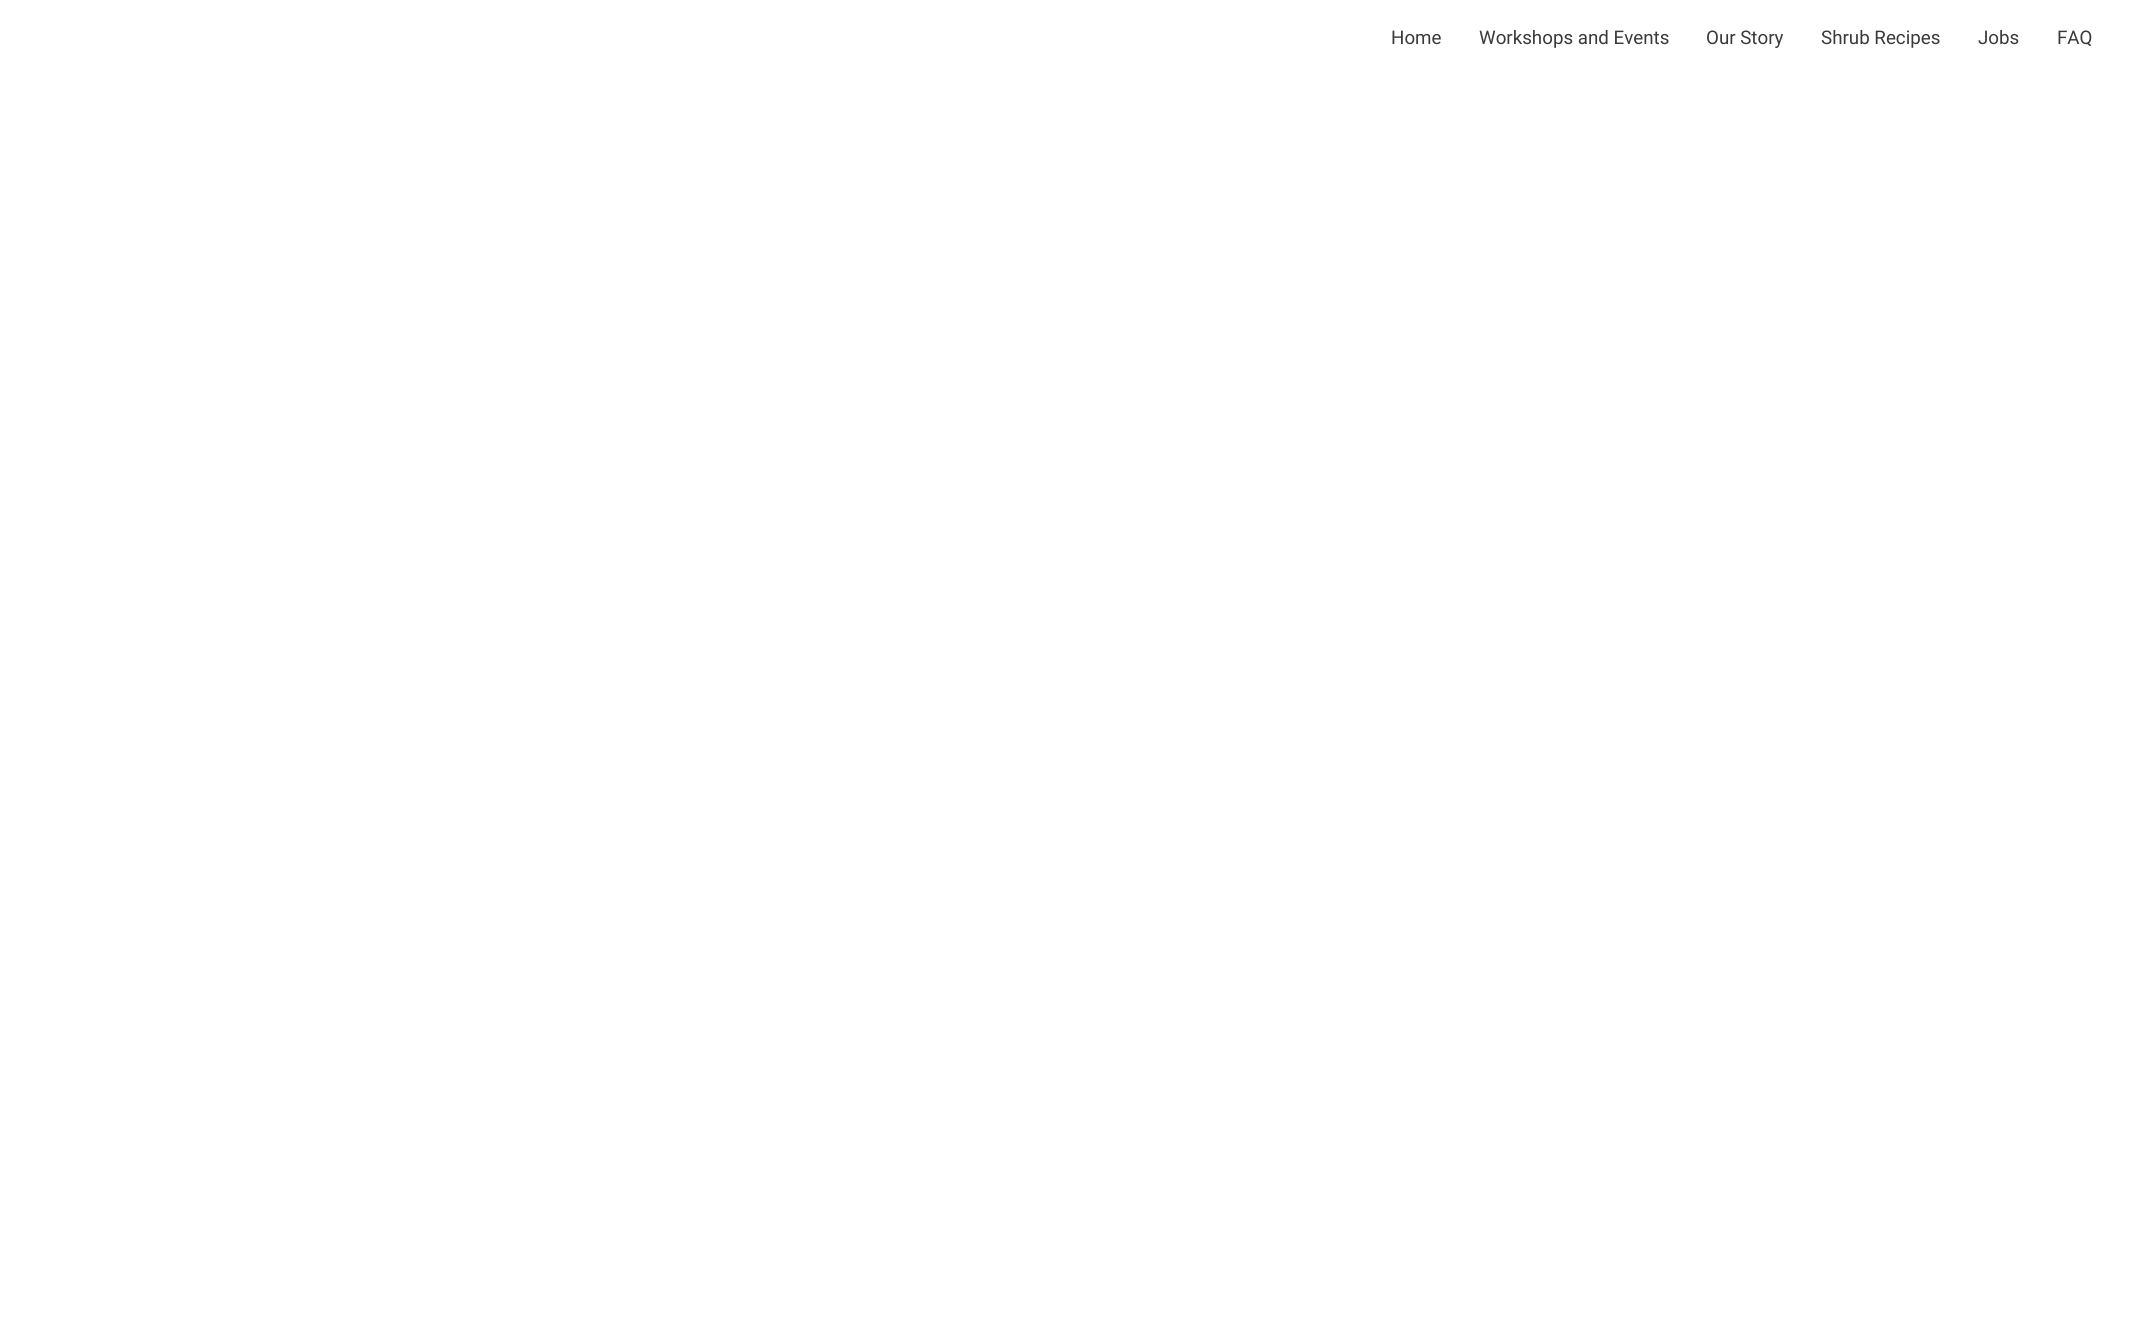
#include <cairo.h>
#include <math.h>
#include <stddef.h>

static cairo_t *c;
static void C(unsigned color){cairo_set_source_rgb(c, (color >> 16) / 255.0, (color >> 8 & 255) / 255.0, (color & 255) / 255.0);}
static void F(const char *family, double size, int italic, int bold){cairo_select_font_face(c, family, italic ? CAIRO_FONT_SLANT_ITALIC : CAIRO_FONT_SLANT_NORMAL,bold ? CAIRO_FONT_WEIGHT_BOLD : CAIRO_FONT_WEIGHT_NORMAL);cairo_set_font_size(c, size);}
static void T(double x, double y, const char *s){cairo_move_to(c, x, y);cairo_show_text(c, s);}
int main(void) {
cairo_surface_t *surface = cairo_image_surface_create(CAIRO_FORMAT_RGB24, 2155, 1331);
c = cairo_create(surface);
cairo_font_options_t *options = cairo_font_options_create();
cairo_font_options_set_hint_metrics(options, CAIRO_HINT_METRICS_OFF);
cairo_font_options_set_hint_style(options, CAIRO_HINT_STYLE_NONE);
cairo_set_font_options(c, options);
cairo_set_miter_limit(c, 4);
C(0xffffff);
cairo_paint(c);
F("Roboto",18.75,0,0);
C(0x3a3a3a);
T(1391,44,"Home");
T(1479,44,"Workshops and Events");
T(1706,44,"Our Story");
T(1821,44,"Shrub Recipes");
T(1978,44,"Jobs");
T(2057,44,"FAQ");
cairo_surface_write_to_png(surface, "o.png");
cairo_font_options_destroy(options);
cairo_destroy(c);
cairo_surface_destroy(surface);
return 0;
}
